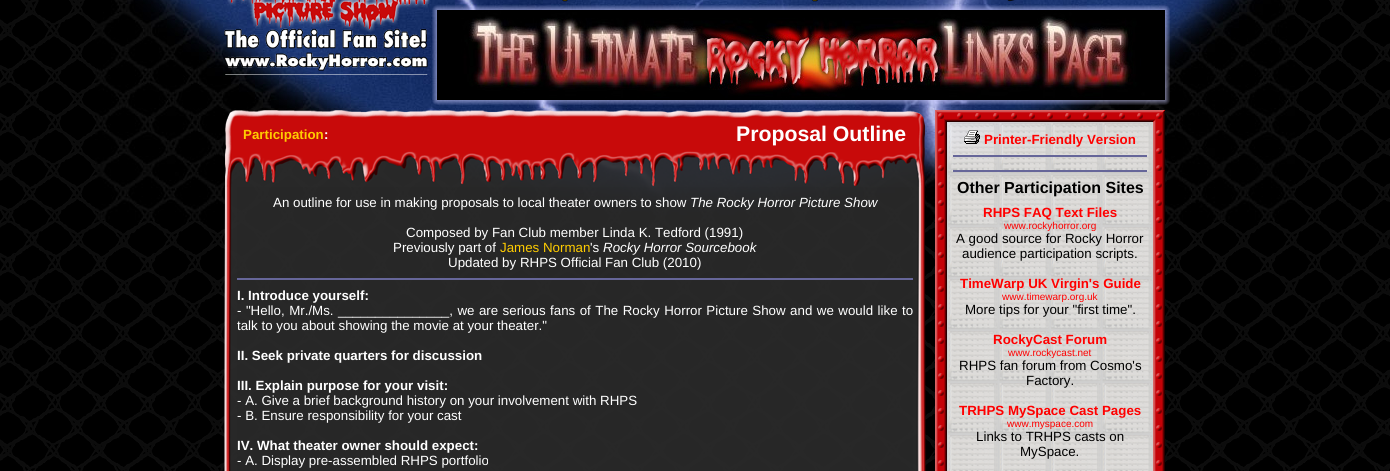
#include <cairo.h>
#include <math.h>
#include <stddef.h>

static cairo_t *c;
static void C(unsigned color){cairo_set_source_rgb(c, (color >> 16) / 255.0, (color >> 8 & 255) / 255.0, (color & 255) / 255.0);}
static void F(const char *family, double size, int italic, int bold){cairo_select_font_face(c, family, italic ? CAIRO_FONT_SLANT_ITALIC : CAIRO_FONT_SLANT_NORMAL,bold ? CAIRO_FONT_WEIGHT_BOLD : CAIRO_FONT_WEIGHT_NORMAL);cairo_set_font_size(c, size);}
static void T(double x, double y, const char *s){cairo_move_to(c, x, y);cairo_show_text(c, s);}
static void L(double x, double y, const char *s, double letter, double word){cairo_move_to(c, x, y);while (*s) {char ch[5] = {0};int n = 0;do ch[n++] = *s++; while ((*s & 0xC0) == 0x80);cairo_show_text(c, ch);cairo_rel_move_to(c, letter + word * (*ch == ' '), 0);}}
static void R(double x, double y, double w, double h){cairo_rectangle(c, x, y, w, h);cairo_fill(c);}
static void I(const char *path, double x, double y, double w, double h){cairo_surface_t *image = cairo_image_surface_create_from_png(path);cairo_save(c);cairo_set_source_surface(c, image, x, y);cairo_rectangle(c, x, y, w, h);cairo_fill(c);cairo_restore(c);cairo_surface_destroy(image);}
int main(void) {
cairo_surface_t *surface = cairo_image_surface_create(CAIRO_FORMAT_RGB24, 1390, 471);
c = cairo_create(surface);
cairo_font_options_t *options = cairo_font_options_create();
cairo_font_options_set_hint_metrics(options, CAIRO_HINT_METRICS_OFF);
cairo_font_options_set_hint_style(options, CAIRO_HINT_STYLE_NONE);
cairo_set_font_options(c, options);
cairo_set_miter_limit(c, 4);
C(0xffffff);
cairo_paint(c);
I("1.png",0,0,1390,471);
I("2.png",95,0,1200,222);
I("3.png",224,0,206,75);
I("4.png",562,0,6,2);
I("5.png",812,0,6,2);
I("6.png",1007,0,8,2);
I("7.png",432,5,738,100);
I("8.png",437,10,728,90);
I("9.png",227,110,697,8);
I("10.png",225,118,12,33);
C(0xc80a0a);
R(237,118,676,33);
F("Liberation Sans",13.33,0,1);
C(0xffcc00);
T(243,139,"Participation");
C(0xffffff);
T(324,139,":");
F("Liberation Sans",21.25,0,1);
T(736,141,"Proposal Outline");
I("11.png",913,118,12,33);
I("12.png",225,151,700,36);
I("13.png",224,187,13,284);
cairo_set_source_rgba(c,0.173,0.173,0.173,0.9);
R(237,187,676,284);
F("Liberation Sans",13.33,0,0);
C(0xffffff);
T(273,207,"An outline for use in making proposals to local theater owners to show");
F("Liberation Sans",13.33,1,0);
T(690,207,"The Rocky Horror Picture Show");
F("Liberation Sans",13.33,0,0);
T(406,237,"Composed by Fan Club member Linda K. Tedford (1991)");
T(393,252,"Previously part of");
C(0xffcc00);
T(500,252,"James Norman");
C(0xffffff);
T(590,252,"'s");
F("Liberation Sans",13.33,1,0);
T(603,252,"Rocky Horror Sourcebook");
F("Liberation Sans",13.33,0,0);
T(448,267,"Updated by RHPS Official Fan Club (2010)");
C(0x666699);
R(237,278,676,2);
F("Liberation Sans",13.33,0,1);
C(0xffffff);
T(237,300,"I. Introduce yourself:");
F("Liberation Sans",13.33,0,0);
L(237,315,"- \"Hello, Mr./Ms. _______________, we are serious fans of The Rocky Horror Picture Show and we would like to",0,.75);
T(237,330,"talk to you about showing the movie at your theater.\"");
F("Liberation Sans",13.33,0,1);
T(237,360,"II. Seek private quarters for discussion");
T(237,390,"III. Explain purpose for your visit:");
F("Liberation Sans",13.33,0,0);
T(237,405,"- A. Give a brief background history on your involvement with RHPS");
T(237,420,"- B. Ensure responsibility for your cast");
F("Liberation Sans",13.33,0,1);
T(237,450,"IV. What theater owner should expect:");
F("Liberation Sans",13.33,0,0);
T(237,465,"- A. Display pre-assembled RHPS portfolio");
I("14.png",913,187,14,284);
I("15.png",935,110,230,12);
I("16.png",935,122,18,349);
I("17.png",953,122,194,349);
I("18.png",964,130,16,14);
F("Liberation Sans",13.33,0,1);
C(0xff0000);
T(984,144,"Printer-Friendly Version");
C(0x666699);
R(953,155,194,2);
R(953,170,194,2);
F("Liberation Sans",16,0,1);
C(0x000000);
T(957,193,"Other Participation Sites");
F("Liberation Sans",13.33,0,1);
C(0xff0000);
T(983,217,"RHPS FAQ Text Files");
F("Liberation Sans",10,0,0);
T(1004,229,"www.rockyhorror.org");
F("Liberation Sans",13.33,0,0);
C(0x000000);
T(956,243,"A good source for Rocky Horror");
T(962,258,"audience participation scripts.");
F("Liberation Sans",13.33,0,1);
C(0xff0000);
T(960,288,"TimeWarp UK Virgin's Guide");
F("Liberation Sans",10,0,0);
T(1002,300,"www.timewarp.org.uk");
F("Liberation Sans",13.33,0,0);
C(0x000000);
T(965,314,"More tips for your \"first time\".");
F("Liberation Sans",13.33,0,1);
C(0xff0000);
T(993,344,"RockyCast Forum");
F("Liberation Sans",10,0,0);
T(1008,356,"www.rockycast.net");
F("Liberation Sans",13.33,0,0);
C(0x000000);
T(959,370,"RHPS fan forum from Cosmo's");
T(1026,385,"Factory.");
F("Liberation Sans",13.33,0,1);
C(0xff0000);
T(959,415,"TRHPS MySpace Cast Pages");
F("Liberation Sans",10,0,0);
T(1007,427,"www.myspace.com");
F("Liberation Sans",13.33,0,0);
C(0x000000);
T(976,441,"Links to TRHPS casts on");
T(1020,456,"MySpace.");
I("19.png",1147,122,18,349);
cairo_surface_write_to_png(surface, "o.png");
cairo_font_options_destroy(options);
cairo_destroy(c);
cairo_surface_destroy(surface);
return 0;
}
